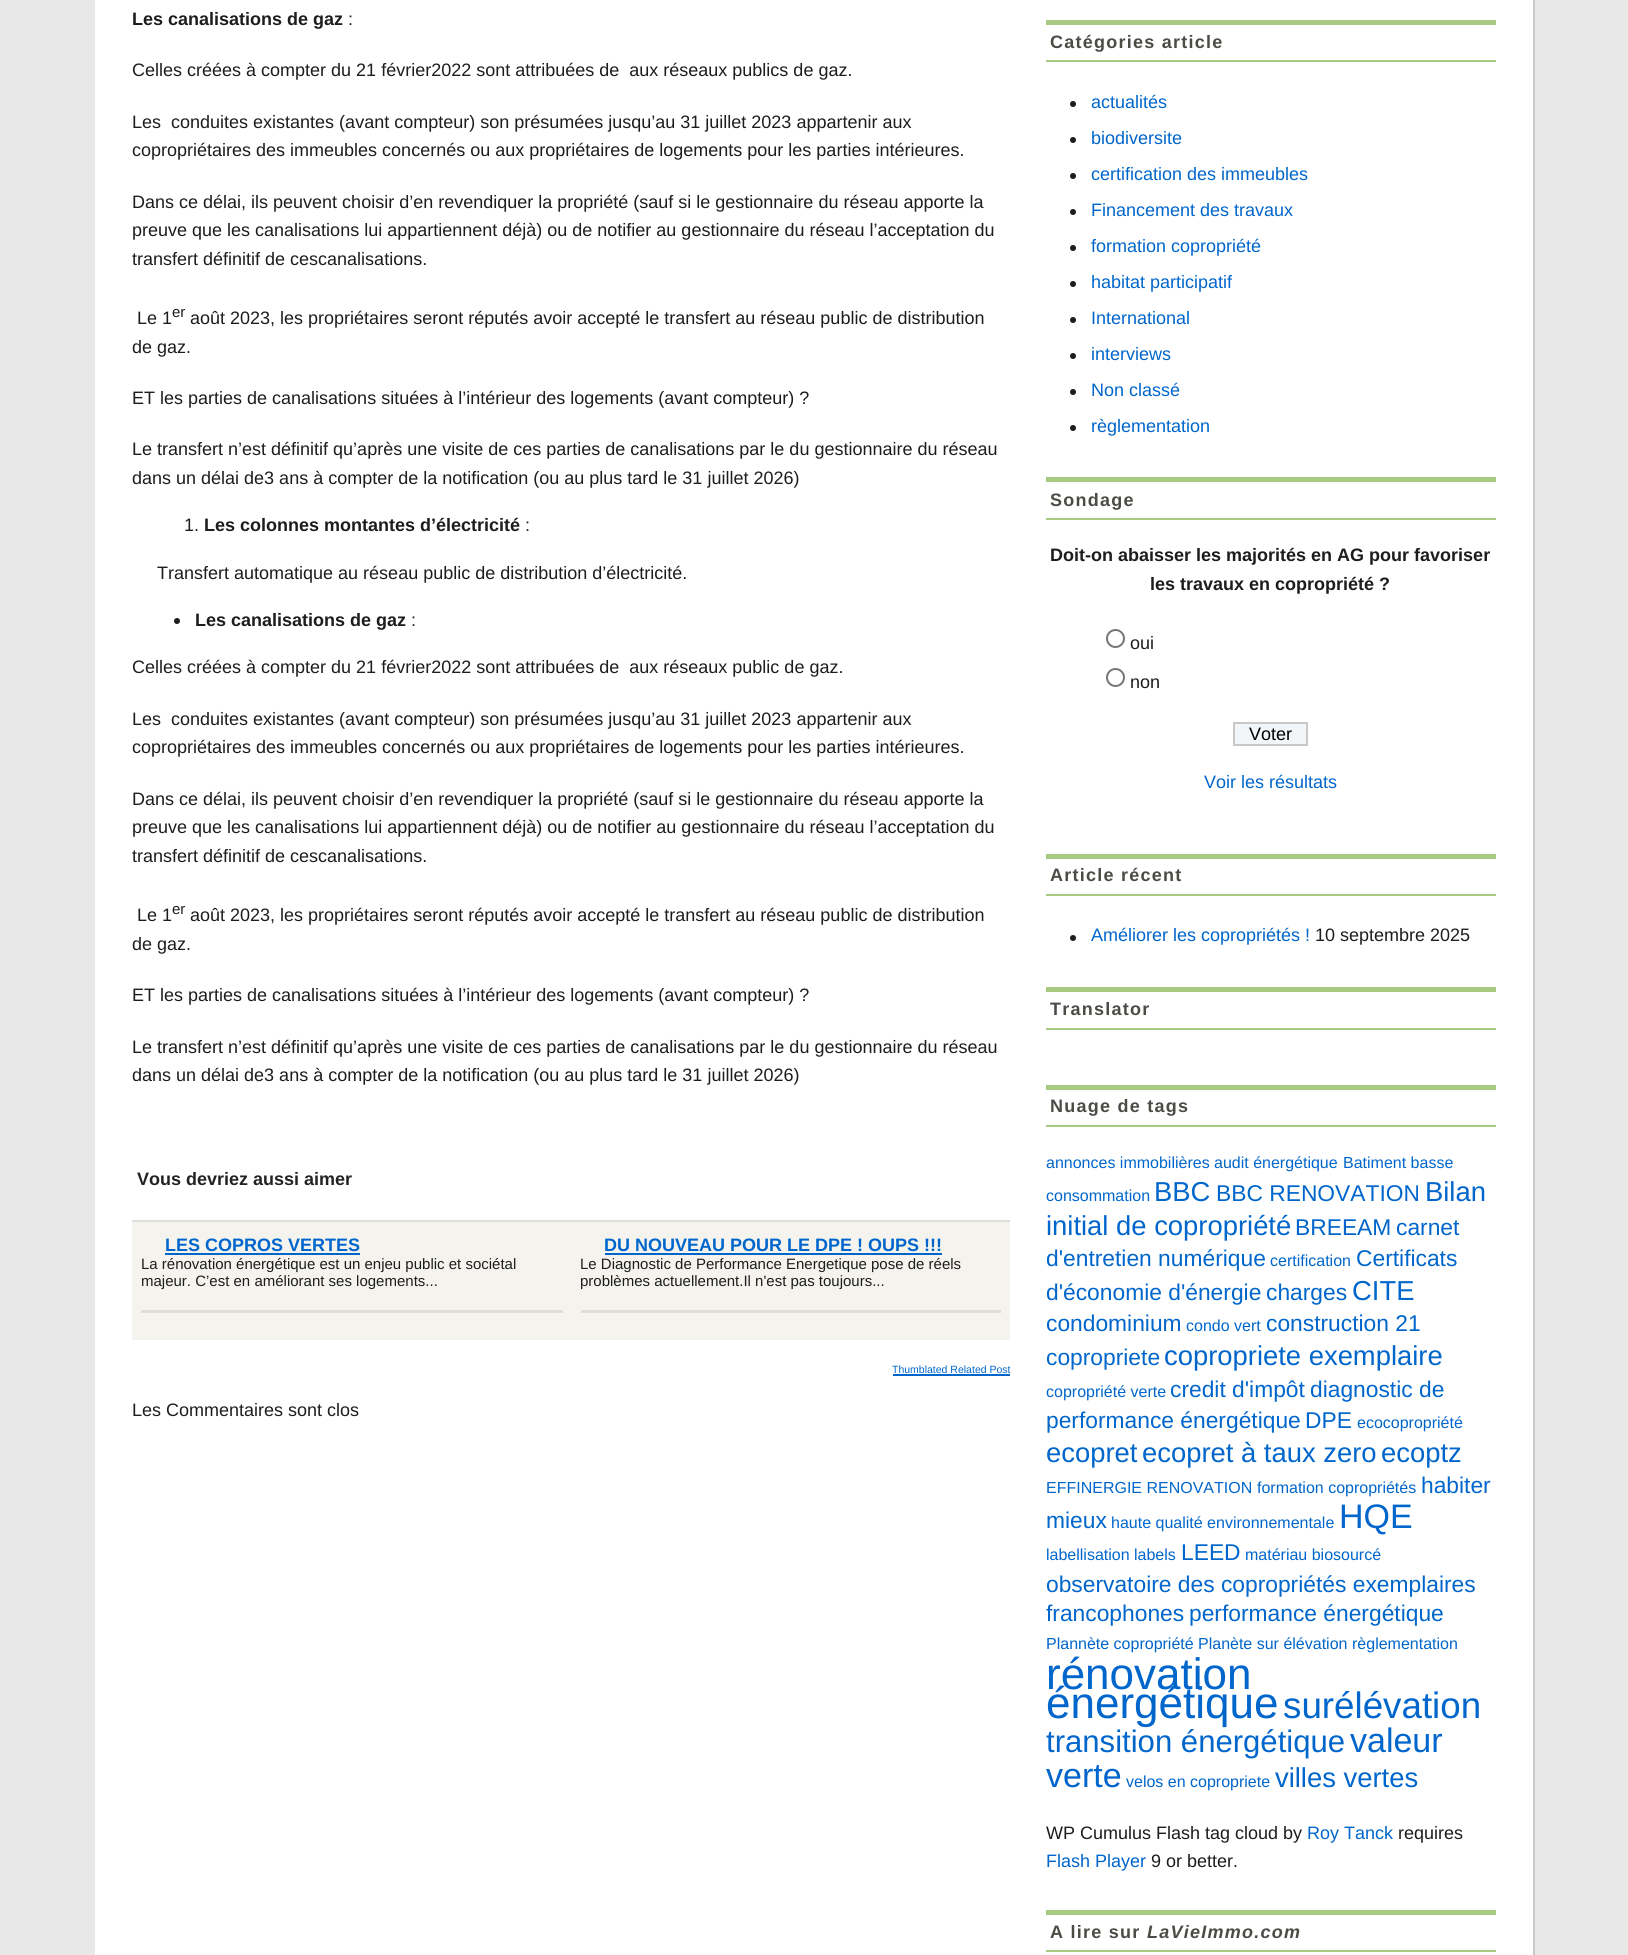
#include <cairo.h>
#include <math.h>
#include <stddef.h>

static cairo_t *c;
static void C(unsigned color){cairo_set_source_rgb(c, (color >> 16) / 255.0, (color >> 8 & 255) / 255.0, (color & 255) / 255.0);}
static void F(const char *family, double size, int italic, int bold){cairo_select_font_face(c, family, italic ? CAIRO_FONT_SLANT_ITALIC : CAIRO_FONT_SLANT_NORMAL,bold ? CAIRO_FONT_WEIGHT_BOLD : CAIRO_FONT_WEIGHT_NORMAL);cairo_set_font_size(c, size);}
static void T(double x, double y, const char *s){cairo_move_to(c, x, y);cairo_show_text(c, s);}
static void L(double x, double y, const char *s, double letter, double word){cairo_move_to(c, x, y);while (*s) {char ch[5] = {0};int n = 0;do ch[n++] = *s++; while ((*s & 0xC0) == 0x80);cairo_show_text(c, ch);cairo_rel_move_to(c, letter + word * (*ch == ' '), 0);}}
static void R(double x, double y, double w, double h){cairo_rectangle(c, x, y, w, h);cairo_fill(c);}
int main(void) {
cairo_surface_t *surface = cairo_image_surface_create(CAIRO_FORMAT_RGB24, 1628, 1955);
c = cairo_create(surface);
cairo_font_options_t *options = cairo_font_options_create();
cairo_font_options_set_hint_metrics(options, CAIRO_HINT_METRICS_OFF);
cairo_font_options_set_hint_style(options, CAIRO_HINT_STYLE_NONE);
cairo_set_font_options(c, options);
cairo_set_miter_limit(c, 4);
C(0xe8e8e8);
cairo_paint(c);
C(0xffffff);
R(95,0,1438,1955);
C(0xcac8c2);
R(1533,0,2,1955);
F("Liberation Sans",18,0,1);
C(0x1d1d1d);
T(132,25,"Les canalisations de gaz");
F("Liberation Sans",18,0,0);
T(348,25,":");
T(132,76,"Celles créées à compter du 21 février2022 sont attribuées de  aux réseaux publics de gaz.");
T(132,128,"Les  conduites existantes (avant compteur) son présumées jusqu’au 31 juillet 2023 appartenir aux");
T(132,156,"copropriétaires des immeubles concernés ou aux propriétaires de logements pour les parties intérieures.");
T(132,208,"Dans ce délai, ils peuvent choisir d’en revendiquer la propriété (sauf si le gestionnaire du réseau apporte la");
T(132,236,"preuve que les canalisations lui appartiennent déjà) ou de notifier au gestionnaire du réseau l’acceptation du");
T(132,265,"transfert définitif de cescanalisations.");
T(137,324,"Le 1");
F("Liberation Sans",15,0,0);
T(172,317,"er");
F("Liberation Sans",18,0,0);
T(190,324,"août 2023, les propriétaires seront réputés avoir accepté le transfert au réseau public de distribution");
T(132,353,"de gaz.");
T(132,404,"ET les parties de canalisations situées à l’intérieur des logements (avant compteur) ?");
T(132,455,"Le transfert n’est définitif qu’après une visite de ces parties de canalisations par le du gestionnaire du réseau");
T(132,484,"dans un délai de3 ans à compter de la notification (ou au plus tard le 31 juillet 2026)");
T(184,531,"1.");
F("Liberation Sans",18,0,1);
T(204,531,"Les colonnes montantes d’électricité");
F("Liberation Sans",18,0,0);
T(525,531,":");
T(157,579,"Transfert automatique au réseau public de distribution d’électricité.");
cairo_new_path(c);
cairo_arc(c,177,621,3,0,2 * M_PI);
cairo_fill(c);
F("Liberation Sans",18,0,1);
T(195,626,"Les canalisations de gaz");
F("Liberation Sans",18,0,0);
T(411,626,":");
T(132,673,"Celles créées à compter du 21 février2022 sont attribuées de  aux réseaux public de gaz.");
T(132,725,"Les  conduites existantes (avant compteur) son présumées jusqu’au 31 juillet 2023 appartenir aux");
T(132,753,"copropriétaires des immeubles concernés ou aux propriétaires de logements pour les parties intérieures.");
T(132,805,"Dans ce délai, ils peuvent choisir d’en revendiquer la propriété (sauf si le gestionnaire du réseau apporte la");
T(132,833,"preuve que les canalisations lui appartiennent déjà) ou de notifier au gestionnaire du réseau l’acceptation du");
T(132,862,"transfert définitif de cescanalisations.");
T(137,921,"Le 1");
F("Liberation Sans",15,0,0);
T(172,914,"er");
F("Liberation Sans",18,0,0);
T(190,921,"août 2023, les propriétaires seront réputés avoir accepté le transfert au réseau public de distribution");
T(132,950,"de gaz.");
T(132,1001,"ET les parties de canalisations situées à l’intérieur des logements (avant compteur) ?");
T(132,1053,"Le transfert n’est définitif qu’après une visite de ces parties de canalisations par le du gestionnaire du réseau");
T(132,1081,"dans un délai de3 ans à compter de la notification (ou au plus tard le 31 juillet 2026)");
F("Liberation Sans",18,0,1);
C(0x232323);
T(137,1185,"Vous devriez aussi aimer");
C(0xe0ded9);
R(132,1220,878,2);
C(0xf5f3ee);
R(132,1222,878,118);
C(0x0066cc);
T(165,1251,"LES COPROS VERTES");
R(165,1253,195,2);
F("Liberation Sans",15,0,0);
C(0x1d1d1d);
T(141,1269,"La rénovation énergétique est un enjeu public et sociétal");
T(141,1286,"majeur. C’est en améliorant ses logements...");
C(0xe0ded9);
R(141,1310,422,3);
F("Liberation Sans",18,0,1);
C(0x0066cc);
T(604,1251,"DU NOUVEAU POUR LE DPE ! OUPS !!!");
R(605,1253,337,2);
F("Liberation Sans",15,0,0);
C(0x1d1d1d);
T(580,1269,"Le Diagnostic de Performance Energetique pose de réels");
T(580,1286,"problèmes actuellement.Il n'est pas toujours...");
C(0xe0ded9);
R(581,1310,420,3);
F("Liberation Sans",10.5,0,0);
C(0x0066cc);
T(892,1373,"Thumblated Related Post");
R(893,1374,117,2);
F("Liberation Sans",18,0,0);
C(0x1d1d1d);
T(132,1416,"Les Commentaires sont clos");
C(0xa7c981);
R(1046,20,450,5);
R(1046,60,450,2);
F("Liberation Sans",18,0,1);
C(0x4c4b46);
L(1050,48,"Catégories article",1.25,0);
C(0x1d1d1d);
cairo_new_path(c);
cairo_arc(c,1073,104,3,0,2 * M_PI);
cairo_fill(c);
F("Liberation Sans",18,0,0);
C(0x0066cc);
T(1091,108,"actualités");
C(0x1d1d1d);
cairo_new_path(c);
cairo_arc(c,1073,140,3,0,2 * M_PI);
cairo_fill(c);
C(0x0066cc);
T(1091,144,"biodiversite");
C(0x1d1d1d);
cairo_new_path(c);
cairo_arc(c,1073,176,3,0,2 * M_PI);
cairo_fill(c);
C(0x0066cc);
T(1091,180,"certification des immeubles");
C(0x1d1d1d);
cairo_new_path(c);
cairo_arc(c,1073,212,3,0,2 * M_PI);
cairo_fill(c);
C(0x0066cc);
T(1091,216,"Financement des travaux");
C(0x1d1d1d);
cairo_new_path(c);
cairo_arc(c,1073,248,3,0,2 * M_PI);
cairo_fill(c);
C(0x0066cc);
T(1091,252,"formation copropriété");
C(0x1d1d1d);
cairo_new_path(c);
cairo_arc(c,1073,284,3,0,2 * M_PI);
cairo_fill(c);
C(0x0066cc);
T(1091,288,"habitat participatif");
C(0x1d1d1d);
cairo_new_path(c);
cairo_arc(c,1073,320,3,0,2 * M_PI);
cairo_fill(c);
C(0x0066cc);
T(1091,324,"International");
C(0x1d1d1d);
cairo_new_path(c);
cairo_arc(c,1073,356,3,0,2 * M_PI);
cairo_fill(c);
C(0x0066cc);
T(1091,360,"interviews");
C(0x1d1d1d);
cairo_new_path(c);
cairo_arc(c,1073,392,3,0,2 * M_PI);
cairo_fill(c);
C(0x0066cc);
T(1091,396,"Non classé");
C(0x1d1d1d);
cairo_new_path(c);
cairo_arc(c,1073,428,3,0,2 * M_PI);
cairo_fill(c);
C(0x0066cc);
T(1091,432,"règlementation");
C(0xa7c981);
R(1046,477,450,5);
R(1046,518,450,2);
F("Liberation Sans",18,0,1);
C(0x4c4b46);
L(1050,506,"Sondage",1.25,0);
C(0x1d1d1d);
T(1050,561,"Doit-on abaisser les majorités en AG pour favoriser");
T(1150,590,"les travaux en copropriété ?");
cairo_new_path(c);
cairo_arc(c,1115.5,638.5,8.5,0,2 * M_PI);
C(0x767676);
cairo_stroke(c);
F("Liberation Sans",18,0,0);
C(0x1d1d1d);
T(1130,649,"oui");
cairo_new_path(c);
cairo_arc(c,1115.5,677.5,8.5,0,2 * M_PI);
C(0x767676);
cairo_stroke(c);
C(0x1d1d1d);
T(1130,688,"non");
C(0xf3f6f8);
cairo_rectangle(c,1234,723,73,22);
cairo_fill_preserve(c);
C(0xc8c8c8);
cairo_stroke(c);
C(0x000000);
T(1249,740,"Voter");
C(0x0066cc);
T(1204,788,"Voir les résultats");
C(0xa7c981);
R(1046,854,450,5);
R(1046,894,450,2);
F("Liberation Sans",18,0,1);
C(0x4c4b46);
L(1050,881,"Article récent",1.25,0);
C(0x1d1d1d);
cairo_new_path(c);
cairo_arc(c,1073,938,3,0,2 * M_PI);
cairo_fill(c);
F("Liberation Sans",18,0,0);
C(0x0066cc);
T(1091,941,"Améliorer les copropriétés !");
C(0x1d1d1d);
T(1315,941,"10 septembre 2025");
C(0xa7c981);
R(1046,987,450,5);
R(1046,1028,450,2);
F("Liberation Sans",18,0,1);
C(0x4c4b46);
L(1050,1015,"Translator",1.25,0);
C(0xa7c981);
R(1046,1085,450,5);
R(1046,1125,450,2);
C(0x4c4b46);
L(1050,1112,"Nuage de tags",1.25,0);
F("Liberation Sans",16,0,0);
C(0x0066cc);
T(1046,1168,"annonces immobilières");
T(1214,1168,"audit énergétique");
T(1343,1168,"Batiment basse");
T(1046,1201,"consommation");
F("Liberation Sans",27.4,0,0);
T(1154,1201,"BBC");
F("Liberation Sans",22.8,0,0);
T(1216,1201,"BBC RENOVATION");
F("Liberation Sans",27.4,0,0);
T(1425,1201,"Bilan");
T(1046,1235,"initial de copropriété");
F("Liberation Sans",22.8,0,0);
T(1295,1235,"BREEAM");
T(1396,1235,"carnet");
T(1046,1266,"d'entretien numérique");
F("Liberation Sans",16,0,0);
T(1270,1266,"certification");
F("Liberation Sans",22.8,0,0);
T(1356,1266,"Certificats");
T(1046,1300,"d'économie d'énergie");
T(1266,1300,"charges");
F("Liberation Sans",27.4,0,0);
T(1352,1300,"CITE");
F("Liberation Sans",22.8,0,0);
T(1046,1331,"condominium");
F("Liberation Sans",16,0,0);
T(1186,1331,"condo vert");
F("Liberation Sans",22.8,0,0);
T(1266,1331,"construction 21");
T(1046,1365,"copropriete");
F("Liberation Sans",27.4,0,0);
T(1164,1365,"copropriete exemplaire");
F("Liberation Sans",16,0,0);
T(1046,1397,"copropriété verte");
F("Liberation Sans",22.8,0,0);
T(1170,1397,"credit d'impôt");
T(1310,1397,"diagnostic de");
T(1046,1428,"performance énergétique");
T(1305,1428,"DPE");
F("Liberation Sans",16,0,0);
T(1357,1428,"ecocopropriété");
F("Liberation Sans",27.4,0,0);
T(1046,1462,"ecopret");
T(1142,1462,"ecopret à taux zero");
T(1381,1462,"ecoptz");
F("Liberation Sans",16,0,0);
T(1046,1493,"EFFINERGIE RENOVATION");
T(1257,1493,"formation copropriétés");
F("Liberation Sans",22.8,0,0);
T(1421,1493,"habiter");
T(1046,1528,"mieux");
F("Liberation Sans",16,0,0);
T(1111,1528,"haute qualité environnementale");
F("Liberation Sans",34,0,0);
T(1339,1528,"HQE");
F("Liberation Sans",16,0,0);
T(1046,1560,"labellisation");
T(1134,1560,"labels");
F("Liberation Sans",22.8,0,0);
T(1181,1560,"LEED");
F("Liberation Sans",16,0,0);
T(1245,1560,"matériau biosourcé");
F("Liberation Sans",22.8,0,0);
T(1046,1592,"observatoire des copropriétés exemplaires");
T(1046,1621,"francophones");
T(1189,1621,"performance énergétique");
F("Liberation Sans",16,0,0);
T(1046,1649,"Plannète copropriété");
T(1198,1649,"Planète sur élévation");
T(1352,1649,"règlementation");
F("Liberation Sans",44,0,0);
T(1046,1689,"rénovation");
T(1046,1718,"énergétique");
F("Liberation Sans",36.75,0,0);
T(1283,1718,"surélévation");
F("Liberation Sans",31.1,0,0);
T(1046,1752,"transition énergétique");
F("Liberation Sans",34,0,0);
T(1350,1752,"valeur");
T(1046,1787,"verte");
F("Liberation Sans",16,0,0);
T(1126,1787,"velos en copropriete");
F("Liberation Sans",27.4,0,0);
T(1275,1787,"villes vertes");
F("Liberation Sans",18,0,0);
C(0x1d1d1d);
T(1046,1839,"WP Cumulus Flash tag cloud by");
C(0x0066cc);
T(1307,1839,"Roy Tanck");
C(0x1d1d1d);
T(1398,1839,"requires");
C(0x0066cc);
T(1046,1867,"Flash Player");
C(0x1d1d1d);
T(1151,1867,"9 or better.");
C(0xa7c981);
R(1046,1910,450,5);
R(1046,1950,450,2);
F("Liberation Sans",18,0,1);
C(0x4c4b46);
L(1050,1938,"A lire sur",1.25,0);
F("Liberation Sans",18,1,1);
L(1147,1938,"LaVieImmo.com",1.25,0);
cairo_surface_write_to_png(surface, "o.png");
cairo_font_options_destroy(options);
cairo_destroy(c);
cairo_surface_destroy(surface);
return 0;
}
